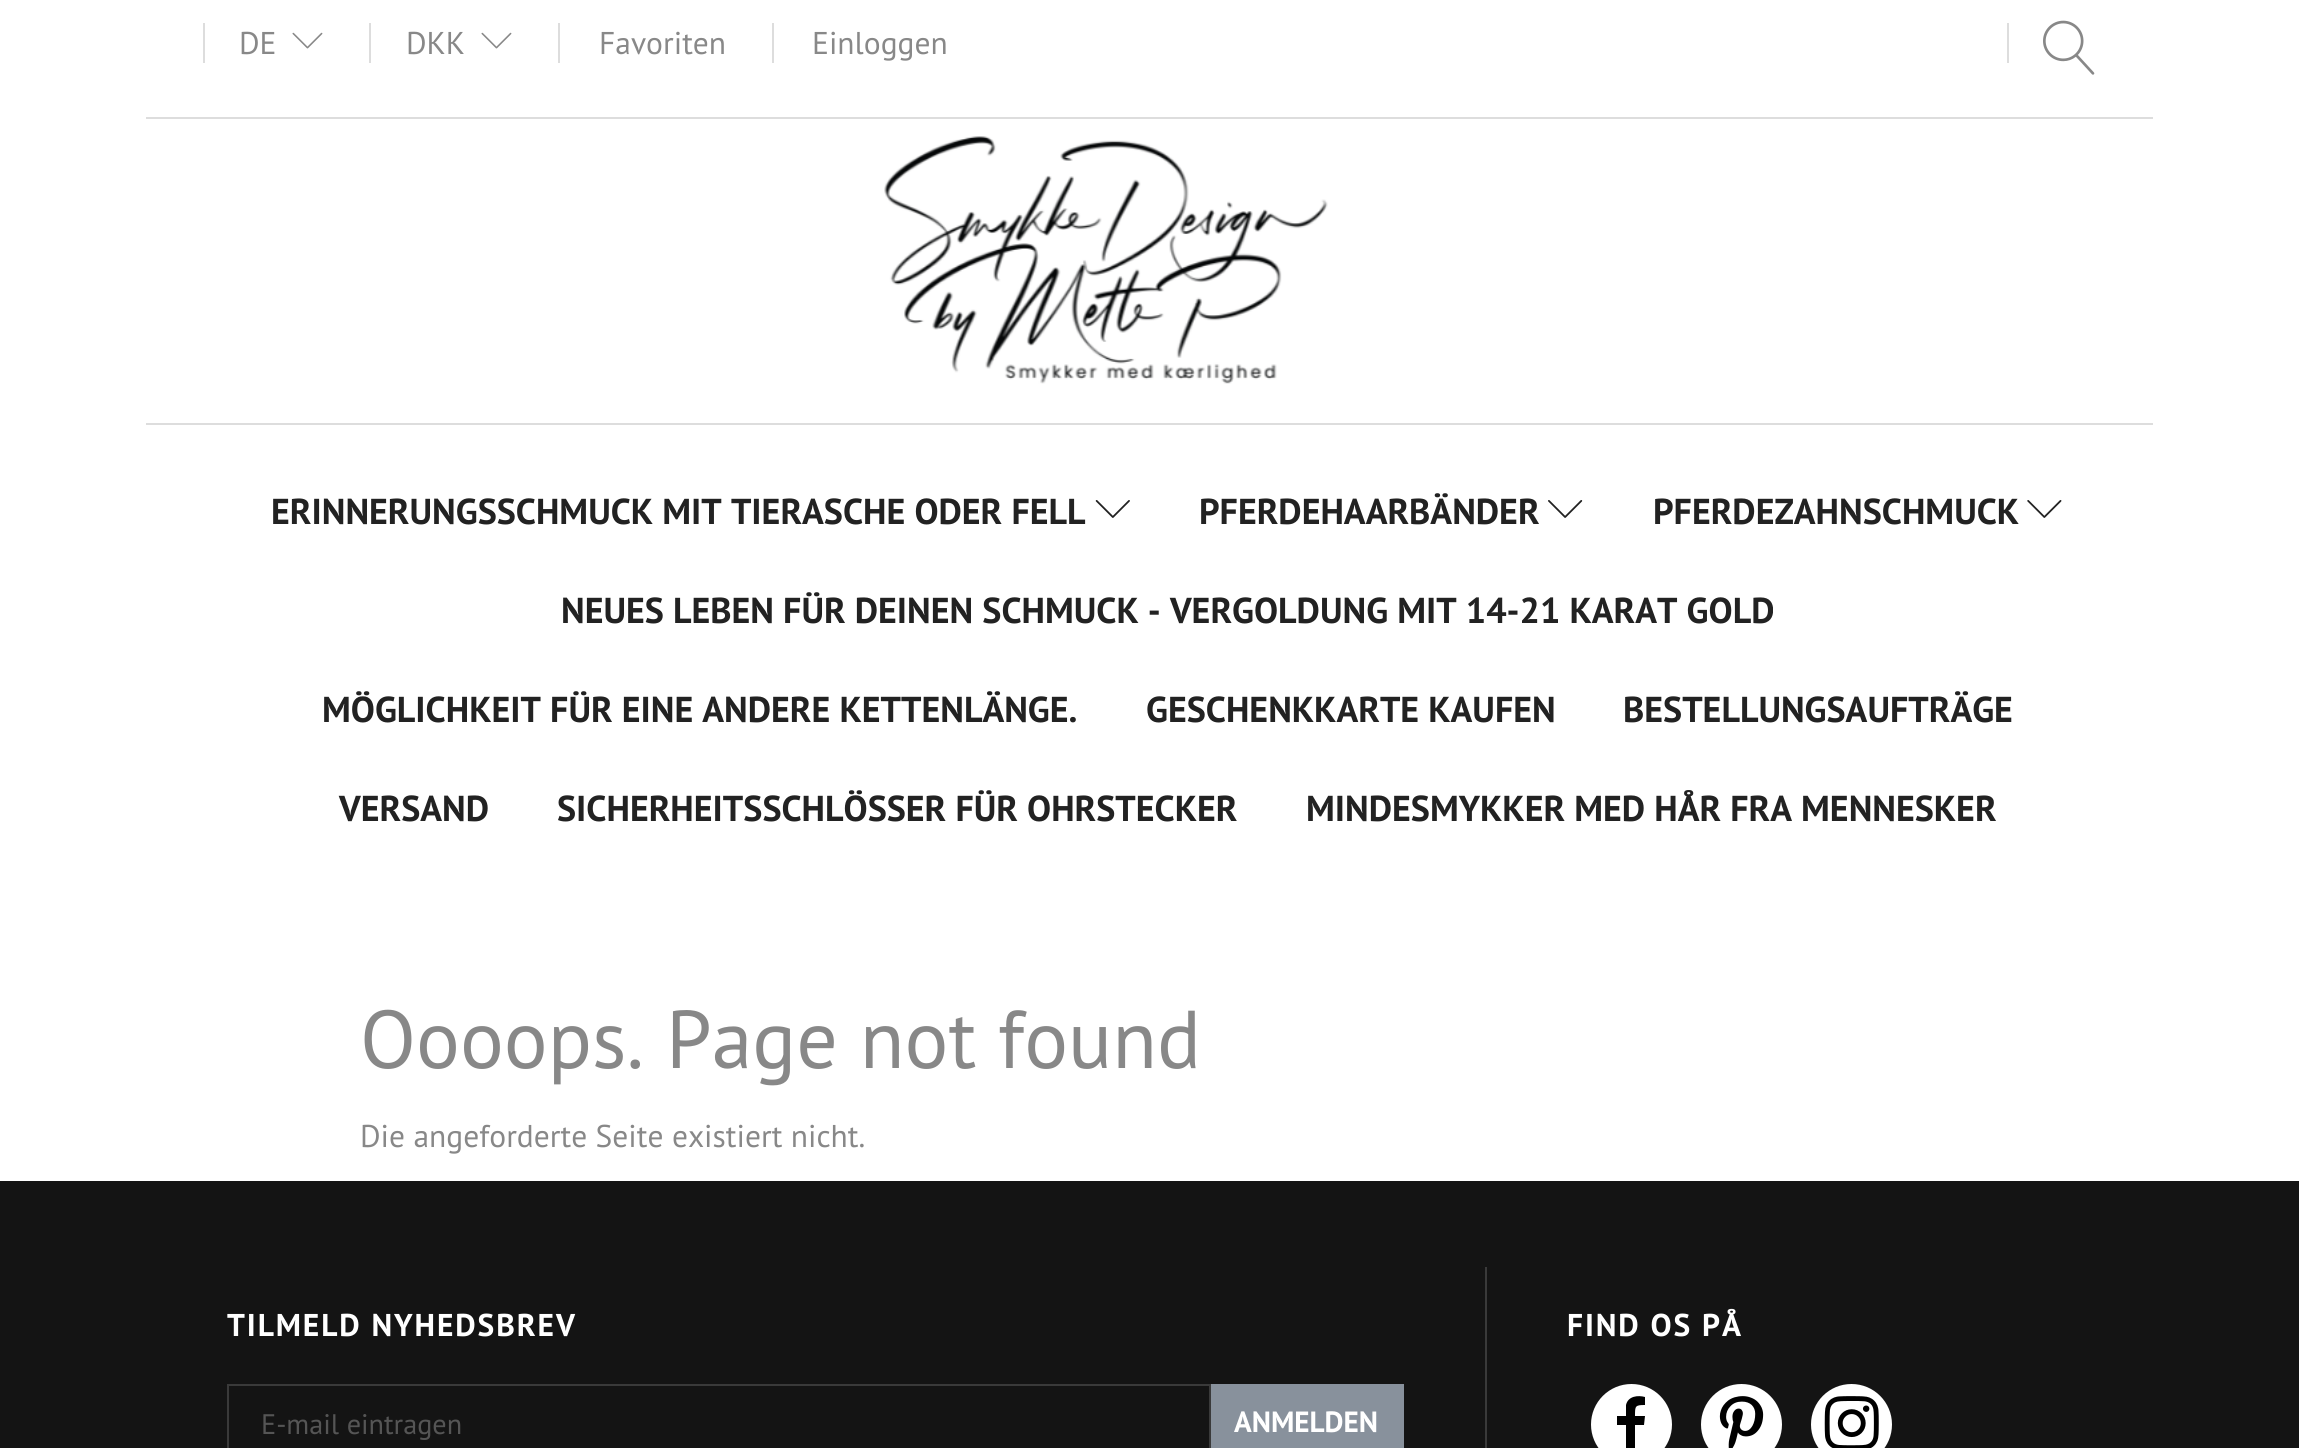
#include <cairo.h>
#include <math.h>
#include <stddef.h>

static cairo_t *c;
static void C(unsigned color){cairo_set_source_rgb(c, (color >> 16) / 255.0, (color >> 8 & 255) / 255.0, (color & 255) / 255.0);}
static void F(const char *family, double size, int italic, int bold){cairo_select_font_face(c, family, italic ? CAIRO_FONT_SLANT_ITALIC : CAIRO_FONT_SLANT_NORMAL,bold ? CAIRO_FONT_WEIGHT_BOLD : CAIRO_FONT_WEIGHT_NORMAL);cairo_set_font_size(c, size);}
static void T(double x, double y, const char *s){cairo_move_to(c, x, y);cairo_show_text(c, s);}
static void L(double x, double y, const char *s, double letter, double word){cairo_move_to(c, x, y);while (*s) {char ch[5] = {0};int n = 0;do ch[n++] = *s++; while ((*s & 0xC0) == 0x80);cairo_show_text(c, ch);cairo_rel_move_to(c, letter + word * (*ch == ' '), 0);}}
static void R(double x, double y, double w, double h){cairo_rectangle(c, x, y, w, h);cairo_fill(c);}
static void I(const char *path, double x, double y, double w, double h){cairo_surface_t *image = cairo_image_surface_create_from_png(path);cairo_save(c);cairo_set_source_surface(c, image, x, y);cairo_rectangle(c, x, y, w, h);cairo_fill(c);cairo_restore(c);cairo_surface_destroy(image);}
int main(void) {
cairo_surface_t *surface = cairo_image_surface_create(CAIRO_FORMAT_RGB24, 2299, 1448);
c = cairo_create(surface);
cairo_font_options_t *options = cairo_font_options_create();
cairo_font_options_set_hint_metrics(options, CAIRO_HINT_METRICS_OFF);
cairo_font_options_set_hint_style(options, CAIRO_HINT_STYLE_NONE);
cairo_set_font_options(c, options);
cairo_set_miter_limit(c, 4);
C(0xffffff);
cairo_paint(c);
C(0xdddddd);
R(203,23,2,40);
F("PT Sans",31.5,0,0);
C(0x888888);
T(239,54,"DE");
I("1.png",292,32,31,17);
C(0xdddddd);
R(369,23,2,40);
C(0x888888);
T(406,54,"DKK");
I("1.png",481,32,31,17);
C(0xdddddd);
R(558,23,2,40);
C(0x888888);
T(599,54,"Favoriten");
C(0xdddddd);
R(772,23,2,40);
C(0x888888);
T(812,54,"Einloggen");
C(0xdddddd);
R(2007,23,2,40);
I("2.png",2043,20,52,55);
R(146,117,2007,2);
R(146,423,2007,2);
I("3.png",884,136,444,248);
F("PT Sans",36,0,1);
C(0x222222);
T(271,524,"ERINNERUNGSSCHMUCK MIT TIERASCHE ODER FELL");
I("4.png",1095,500,35,18);
T(1199,524,"PFERDEHAARBÄNDER");
I("5.png",1548,500,35,18);
T(1653,524,"PFERDEZAHNSCHMUCK");
I("6.png",2027,500,35,18);
T(561,623,"NEUES LEBEN FÜR DEINEN SCHMUCK - VERGOLDUNG MIT 14-21 KARAT GOLD");
T(322,722,"MÖGLICHKEIT FÜR EINE ANDERE KETTENLÄNGE.");
T(1146,722,"GESCHENKKARTE KAUFEN");
T(1623,722,"BESTELLUNGSAUFTRÄGE");
T(339,821,"VERSAND");
T(557,821,"SICHERHEITSSCHLÖSSER FÜR OHRSTECKER");
T(1306,821,"MINDESMYKKER MED HÅR FRA MENNESKER");
F("PT Sans",81.9,0,0);
C(0x888888);
T(360,1068,"Oooops. Page not found");
F("PT Sans",31.5,0,0);
T(360,1147,"Die angeforderte Seite existiert nicht.");
C(0x141414);
R(0,1181,2299,267);
F("PT Sans",31.5,0,1);
C(0xffffff);
L(227,1336,"TILMELD NYHEDSBREV",1.9,0);
cairo_rectangle(c,228,1385,982,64);
C(0x3a3a3a);
cairo_stroke(c);
F("PT Sans",28.25,0,0);
C(0x555555);
T(261,1434,"E-mail eintragen");
C(0x88919c);
R(1211,1384,193,64);
F("PT Sans",29.25,0,1);
C(0xffffff);
T(1234,1432,"ANMELDEN");
C(0x3a3a3a);
R(1485,1267,2,181);
F("PT Sans",31.5,0,1);
C(0xffffff);
L(1567,1336,"FIND OS PÅ",1.9,0);
cairo_new_path(c);
cairo_arc(c,1631.5,1424.5,40.5,0,2 * M_PI);
cairo_fill(c);
C(0x000000);
cairo_new_path(c);
cairo_move_to(c,1635,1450);
cairo_line_to(c,1635,1425);
cairo_line_to(c,1644,1425);
cairo_line_to(c,1645,1416);
cairo_line_to(c,1635,1416);
cairo_curve_to(c,1635,1406,1635,1405,1645,1405);
cairo_line_to(c,1645,1397);
cairo_curve_to(c,1638,1395,1628,1396,1626,1405);
cairo_line_to(c,1626,1416);
cairo_line_to(c,1617,1416);
cairo_line_to(c,1617,1425);
cairo_line_to(c,1626,1425);
cairo_line_to(c,1626,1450);
cairo_close_path(c);
cairo_fill(c);
C(0xffffff);
cairo_arc(c,1741.5,1424.5,40.5,0,2 * M_PI);
cairo_fill(c);
I("7.png",1719,1396,45,52);
cairo_arc(c,1851.5,1424.5,40.5,0,2 * M_PI);
cairo_fill(c);
I("8.png",1824,1396,55,52);
cairo_surface_write_to_png(surface, "o.png");
cairo_font_options_destroy(options);
cairo_destroy(c);
cairo_surface_destroy(surface);
return 0;
}
